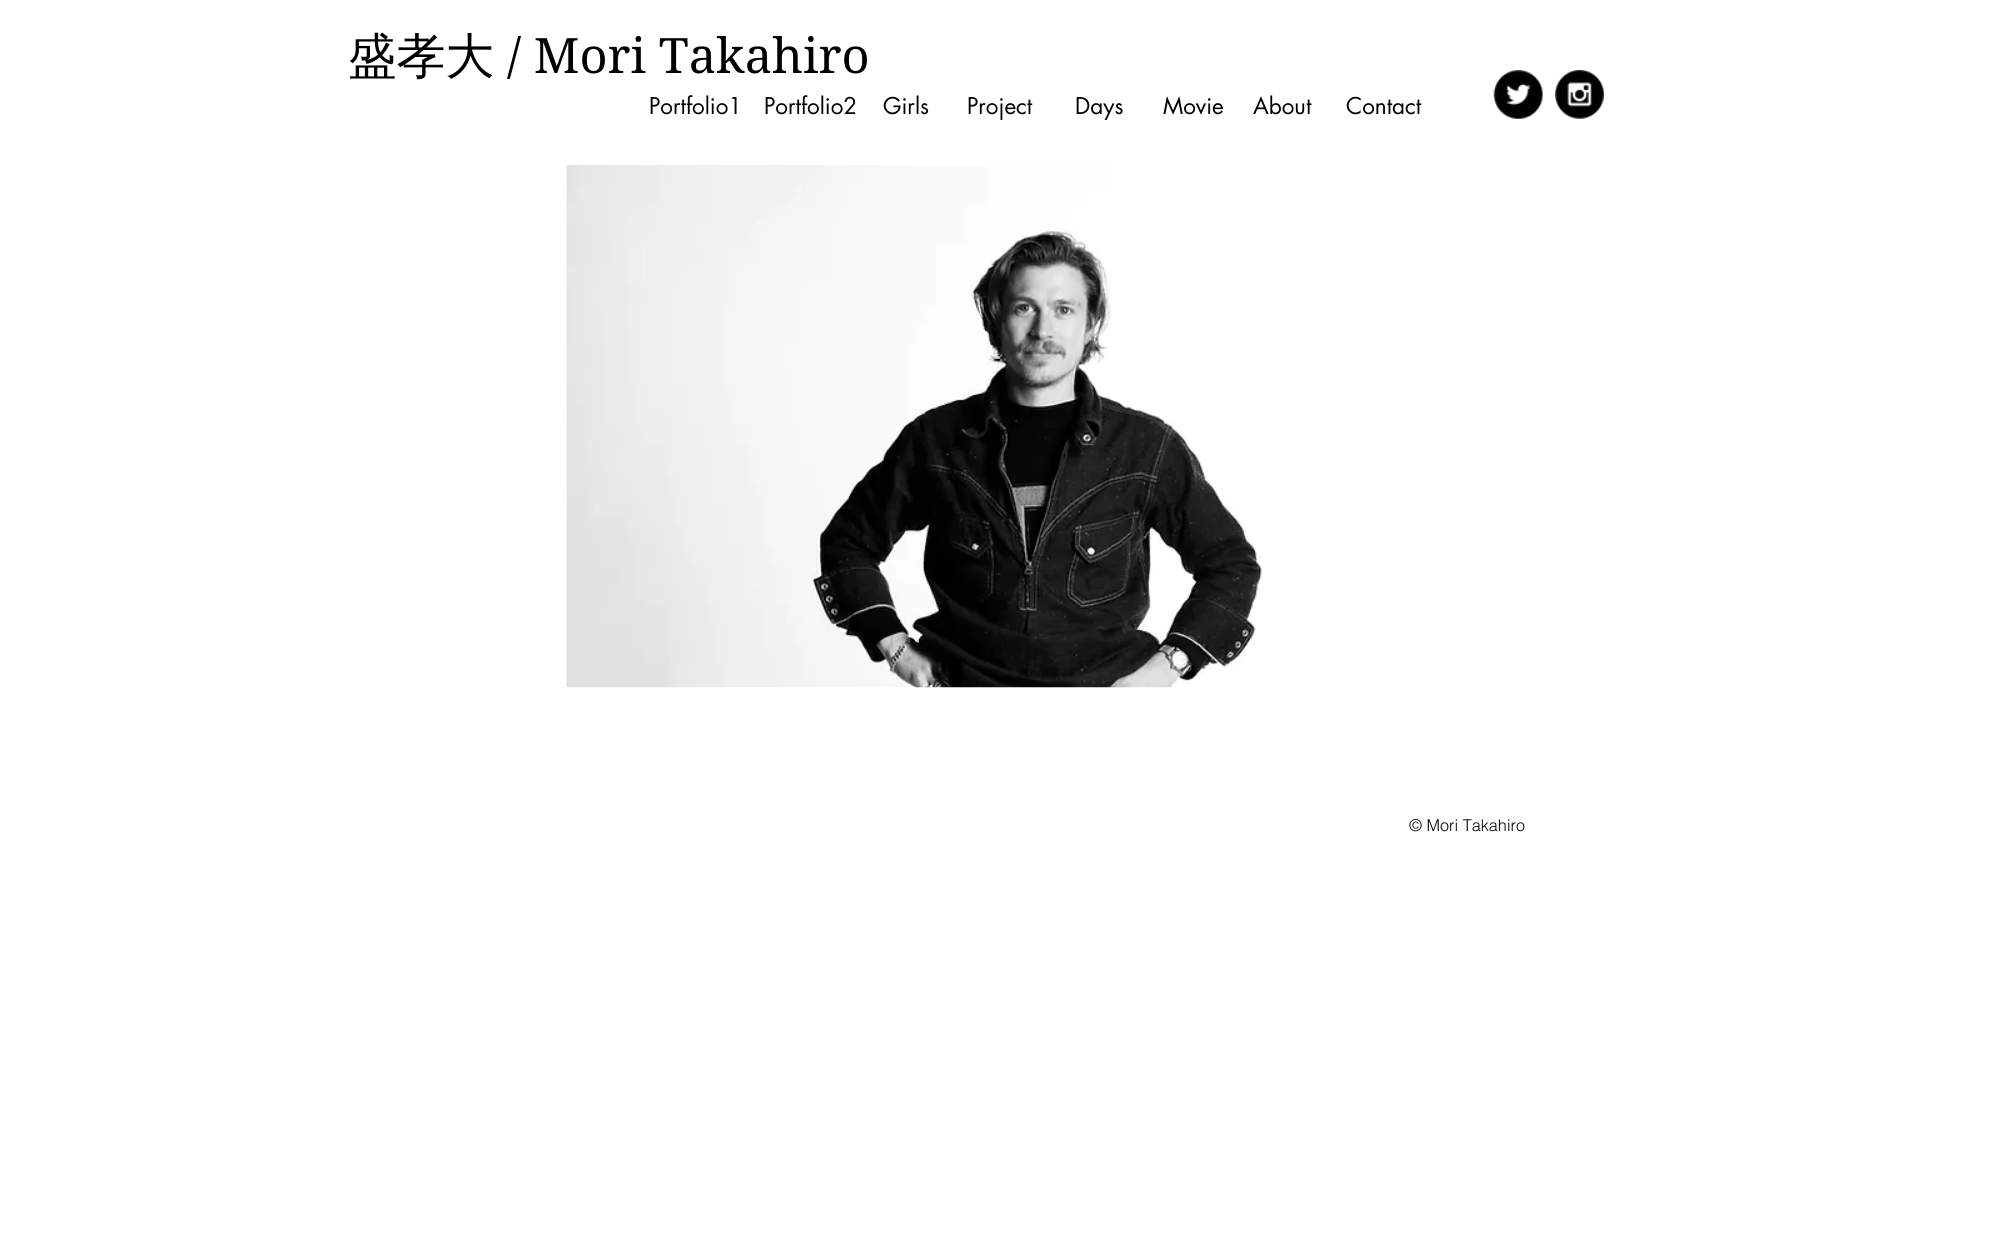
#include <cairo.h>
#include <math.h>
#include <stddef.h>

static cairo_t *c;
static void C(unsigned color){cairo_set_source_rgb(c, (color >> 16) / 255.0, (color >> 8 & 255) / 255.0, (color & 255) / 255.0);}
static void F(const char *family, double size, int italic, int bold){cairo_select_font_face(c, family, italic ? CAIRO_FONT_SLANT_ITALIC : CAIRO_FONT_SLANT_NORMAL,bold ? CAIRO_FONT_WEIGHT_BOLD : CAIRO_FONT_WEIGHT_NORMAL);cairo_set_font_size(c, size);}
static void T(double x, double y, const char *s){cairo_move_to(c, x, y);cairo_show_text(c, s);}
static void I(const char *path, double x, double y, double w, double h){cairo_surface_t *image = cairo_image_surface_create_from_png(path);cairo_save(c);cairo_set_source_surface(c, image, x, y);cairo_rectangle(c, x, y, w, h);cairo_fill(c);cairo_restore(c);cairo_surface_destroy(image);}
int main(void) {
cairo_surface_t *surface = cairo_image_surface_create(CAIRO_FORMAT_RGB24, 2010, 1246);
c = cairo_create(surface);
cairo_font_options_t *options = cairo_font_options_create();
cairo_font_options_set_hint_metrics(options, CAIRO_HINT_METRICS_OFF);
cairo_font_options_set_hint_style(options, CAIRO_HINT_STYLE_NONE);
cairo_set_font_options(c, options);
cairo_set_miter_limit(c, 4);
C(0xffffff);
cairo_paint(c);
F("WenQuanYi Zen Hei Medium",48.75,0,0);
C(0x000000);
T(348,73,"盛孝大");
F("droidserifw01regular",48.75,0,0);
T(507,73,"/ Mori Takahiro");
F("futura",22.5,0,0);
T(649,114,"Portfolio1");
T(764,114,"Portfolio2");
T(883,114,"Girls");
T(967,114,"Project");
T(1075,114,"Days");
T(1163,114,"Movie");
T(1253,114,"About");
T(1346,114,"Contact");
I("1.png",1493,70,50,49);
I("2.png",1555,70,49,49);
I("3.png",566,165,696,523);
F("helvetica Light",16.25,0,0);
T(1409,831,"© Mori Takahiro");
cairo_surface_write_to_png(surface, "o.png");
cairo_font_options_destroy(options);
cairo_destroy(c);
cairo_surface_destroy(surface);
return 0;
}
